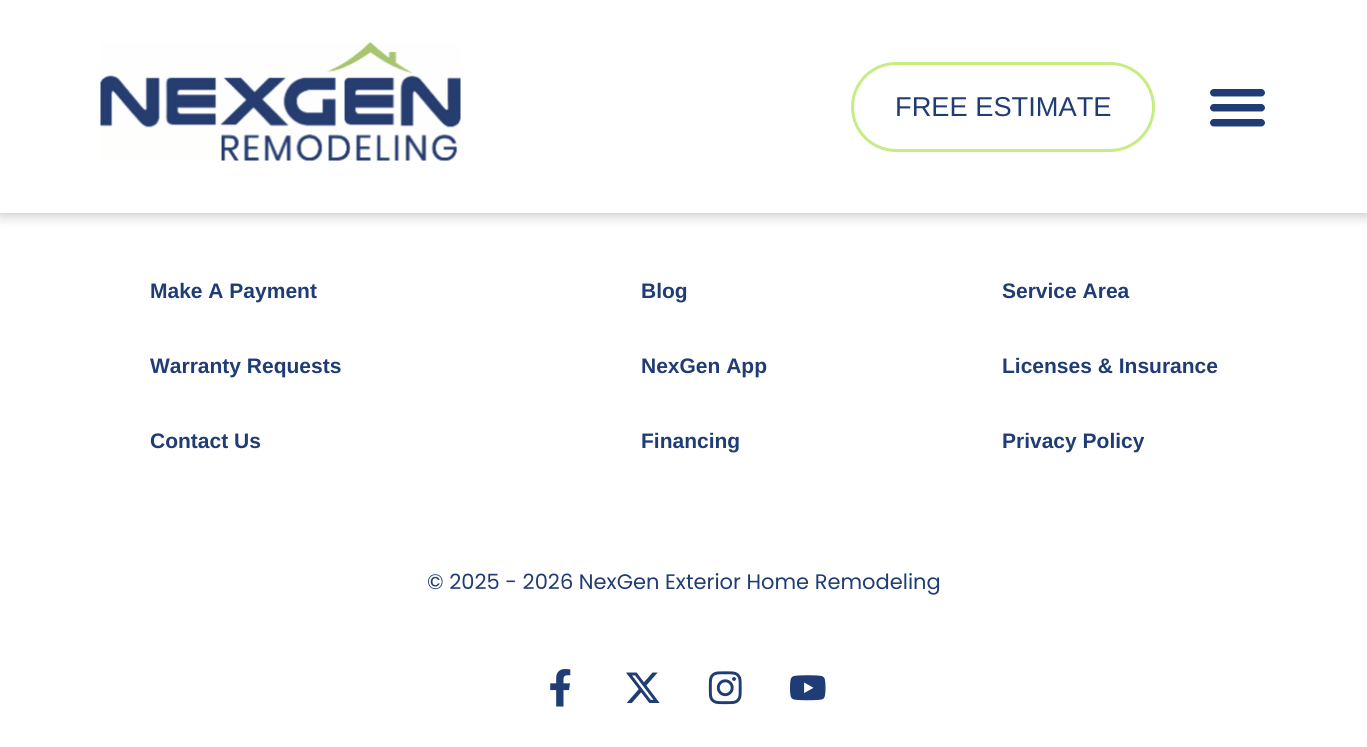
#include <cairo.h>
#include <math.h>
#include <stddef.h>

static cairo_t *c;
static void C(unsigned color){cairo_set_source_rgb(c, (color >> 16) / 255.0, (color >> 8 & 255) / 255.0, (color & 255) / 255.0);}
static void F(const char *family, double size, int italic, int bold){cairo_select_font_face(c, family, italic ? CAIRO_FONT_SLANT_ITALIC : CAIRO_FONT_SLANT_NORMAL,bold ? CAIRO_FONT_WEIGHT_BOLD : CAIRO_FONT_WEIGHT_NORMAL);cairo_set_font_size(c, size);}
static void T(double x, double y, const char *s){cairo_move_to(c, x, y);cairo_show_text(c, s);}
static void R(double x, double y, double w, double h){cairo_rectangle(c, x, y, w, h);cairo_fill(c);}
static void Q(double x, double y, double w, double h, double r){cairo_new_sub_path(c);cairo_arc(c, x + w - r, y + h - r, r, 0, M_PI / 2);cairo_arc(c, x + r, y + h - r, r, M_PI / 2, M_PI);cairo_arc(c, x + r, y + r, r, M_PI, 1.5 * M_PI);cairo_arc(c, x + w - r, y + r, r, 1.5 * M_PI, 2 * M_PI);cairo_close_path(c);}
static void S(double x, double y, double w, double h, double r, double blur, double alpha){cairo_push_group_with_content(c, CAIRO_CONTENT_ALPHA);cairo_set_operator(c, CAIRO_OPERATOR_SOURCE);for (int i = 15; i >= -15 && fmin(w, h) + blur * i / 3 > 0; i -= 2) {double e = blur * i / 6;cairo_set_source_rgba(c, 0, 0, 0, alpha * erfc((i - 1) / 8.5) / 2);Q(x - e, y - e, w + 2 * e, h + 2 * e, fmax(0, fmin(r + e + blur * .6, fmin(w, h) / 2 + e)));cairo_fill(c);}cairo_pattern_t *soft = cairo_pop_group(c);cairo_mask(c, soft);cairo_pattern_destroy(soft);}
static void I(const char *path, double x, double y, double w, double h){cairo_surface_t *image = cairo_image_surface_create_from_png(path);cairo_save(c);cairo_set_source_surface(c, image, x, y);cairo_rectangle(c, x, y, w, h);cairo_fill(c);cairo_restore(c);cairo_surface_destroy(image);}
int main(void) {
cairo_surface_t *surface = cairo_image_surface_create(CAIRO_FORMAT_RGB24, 1367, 747);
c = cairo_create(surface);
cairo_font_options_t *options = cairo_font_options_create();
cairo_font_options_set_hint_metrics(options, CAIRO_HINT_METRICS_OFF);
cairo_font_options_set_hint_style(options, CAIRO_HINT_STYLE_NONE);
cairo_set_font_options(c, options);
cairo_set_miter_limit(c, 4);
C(0xffffff);
cairo_paint(c);
C(0x000000);
S(0,0,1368,213,0,7.5,.3);
C(0xffffff);
R(0,0,1367,213);
I("1.png",100,42,361,119);
Q(852.5,63.5,301,87,43.5);
C(0xc5ed82);
cairo_set_line_width(c,3);
cairo_stroke(c);
F("Liberation Sans",27.25,0,0);
C(0x203c74);
T(895,116,"FREE ESTIMATE");
I("2.png",1210,89,55,38);
F("Liberation Sans",21,0,1);
T(150,298,"Make A Payment");
T(150,373,"Warranty Requests");
T(150,448,"Contact Us");
T(641,298,"Blog");
T(641,373,"NexGen App");
T(641,448,"Financing");
T(1002,298,"Service Area");
T(1002,373,"Licenses & Insurance");
T(1002,448,"Privacy Policy");
F("Poppins",21,0,0);
T(427,589,"© 2025 - 2026 NexGen Exterior Home Remodeling");
I("3.png",550,669,21,38);
I("4.png",626,672,34,31);
I("5.png",708,671,34,34);
I("6.png",790,675,36,26);
cairo_surface_write_to_png(surface, "o.png");
cairo_font_options_destroy(options);
cairo_destroy(c);
cairo_surface_destroy(surface);
return 0;
}
